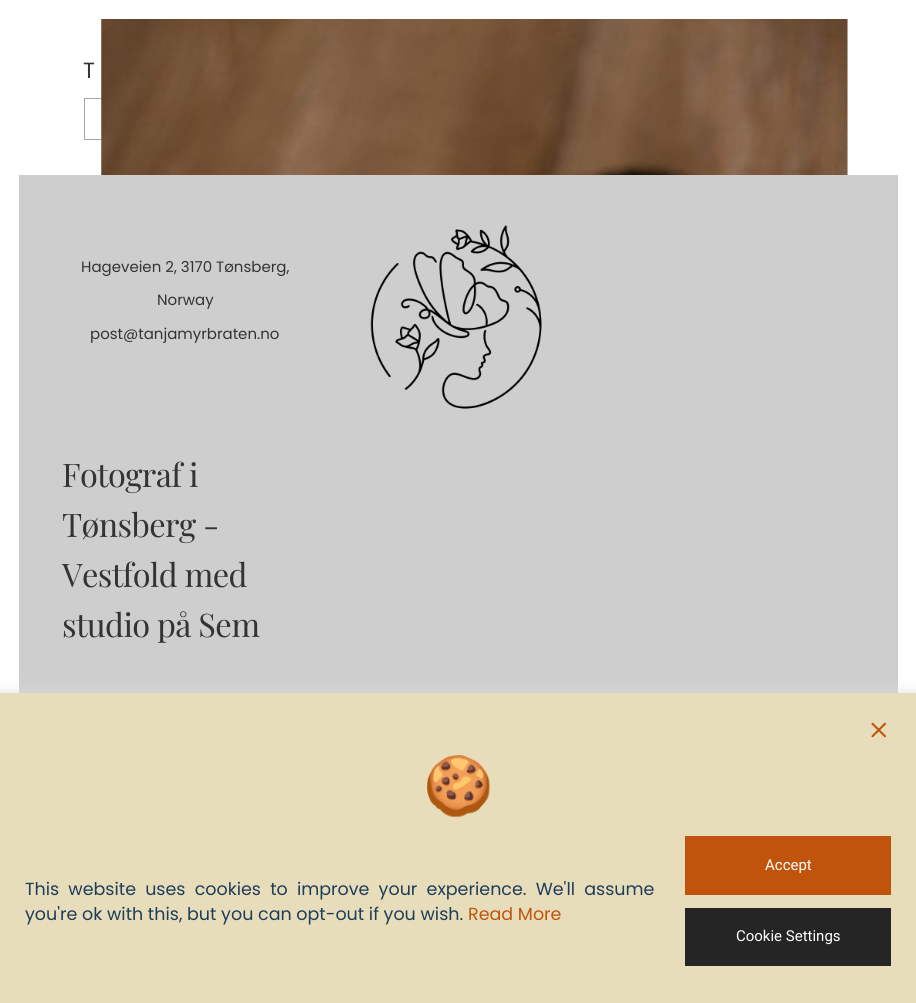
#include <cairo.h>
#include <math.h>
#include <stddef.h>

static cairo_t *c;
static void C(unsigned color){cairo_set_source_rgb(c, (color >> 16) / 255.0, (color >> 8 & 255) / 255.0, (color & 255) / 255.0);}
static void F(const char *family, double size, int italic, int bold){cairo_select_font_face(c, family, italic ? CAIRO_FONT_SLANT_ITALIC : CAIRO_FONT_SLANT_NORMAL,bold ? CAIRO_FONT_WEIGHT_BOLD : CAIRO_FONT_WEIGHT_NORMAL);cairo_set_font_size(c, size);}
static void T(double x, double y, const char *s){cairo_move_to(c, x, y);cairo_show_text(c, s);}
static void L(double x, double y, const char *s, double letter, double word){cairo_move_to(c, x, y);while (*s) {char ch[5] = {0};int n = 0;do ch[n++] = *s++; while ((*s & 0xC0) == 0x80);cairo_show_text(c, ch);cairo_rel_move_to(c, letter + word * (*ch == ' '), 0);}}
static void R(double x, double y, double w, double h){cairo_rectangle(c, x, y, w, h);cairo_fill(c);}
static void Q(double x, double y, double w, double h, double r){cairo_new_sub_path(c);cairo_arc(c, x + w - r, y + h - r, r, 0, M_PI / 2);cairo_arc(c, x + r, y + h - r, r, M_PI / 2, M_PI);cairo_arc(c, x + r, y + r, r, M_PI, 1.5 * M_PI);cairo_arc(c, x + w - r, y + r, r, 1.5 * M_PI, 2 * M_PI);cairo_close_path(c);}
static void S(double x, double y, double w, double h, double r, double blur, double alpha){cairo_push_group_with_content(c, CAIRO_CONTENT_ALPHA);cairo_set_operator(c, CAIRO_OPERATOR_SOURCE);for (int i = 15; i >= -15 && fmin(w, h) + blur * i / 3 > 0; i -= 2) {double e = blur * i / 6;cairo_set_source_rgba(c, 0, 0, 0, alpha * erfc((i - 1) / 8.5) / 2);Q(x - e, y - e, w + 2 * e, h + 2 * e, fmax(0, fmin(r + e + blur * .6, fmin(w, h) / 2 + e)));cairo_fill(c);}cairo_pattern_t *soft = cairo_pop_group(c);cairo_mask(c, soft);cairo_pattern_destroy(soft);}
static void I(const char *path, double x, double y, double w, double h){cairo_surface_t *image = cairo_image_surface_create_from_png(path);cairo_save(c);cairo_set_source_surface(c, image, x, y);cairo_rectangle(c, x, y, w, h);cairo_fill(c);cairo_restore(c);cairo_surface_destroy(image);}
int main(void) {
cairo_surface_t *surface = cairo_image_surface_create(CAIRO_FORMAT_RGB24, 916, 1003);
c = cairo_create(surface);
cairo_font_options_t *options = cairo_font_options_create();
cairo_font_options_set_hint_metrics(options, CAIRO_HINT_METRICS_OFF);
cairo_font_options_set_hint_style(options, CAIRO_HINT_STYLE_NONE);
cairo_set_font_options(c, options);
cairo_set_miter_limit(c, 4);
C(0xffffff);
cairo_paint(c);
F("Poppins",22,0,0);
C(0x333333);
T(83,78,"T");
cairo_rectangle(c,84.5,98.5,146,41);
C(0xa7a6a6);
cairo_set_line_width(c,1);
cairo_stroke(c);
I("1.png",101,19,747,156);
I("2.png",101,19,747,156);
C(0xcecece);
R(19,175,879,518);
F("Poppins",15,0,0);
C(0x333333);
T(81,272,"Hageveien 2, 3170 Tønsberg,");
T(157,305,"Norway");
T(90,339,"post@tanjamyrbraten.no");
F("Playfair Display",32.5,0,0);
L(62,487,"Fotograf i",-.6,0);
L(62,537,"Tønsberg -",-.6,0);
L(62,587,"Vestfold med",-.6,0);
L(62,637,"studio på Sem",-.6,0);
I("3.png",370,225,172,184);
C(0xdddddd);
S(-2,694,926,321,0,7,1);
C(0xe8ddbb);
R(0,693,916,310);
I("4.png",871,722,15,16);
I("5.png",427,755,63,63);
F("Poppins",17.5,0,0);
C(0x1e3d59);
L(25,895,"This website uses cookies to improve your experience. We'll assume",0,4.5);
T(25,920,"you're ok with this, but you can opt-out if you wish.");
C(0xc1540c);
T(468,920,"Read More");
R(685,836,206,59);
F("Roboto",15,0,0);
C(0xffffff);
T(765,870,"Accept");
C(0x252525);
R(685,908,206,58);
C(0xffffff);
T(736,941,"Cookie Settings");
cairo_surface_write_to_png(surface, "o.png");
cairo_font_options_destroy(options);
cairo_destroy(c);
cairo_surface_destroy(surface);
return 0;
}
